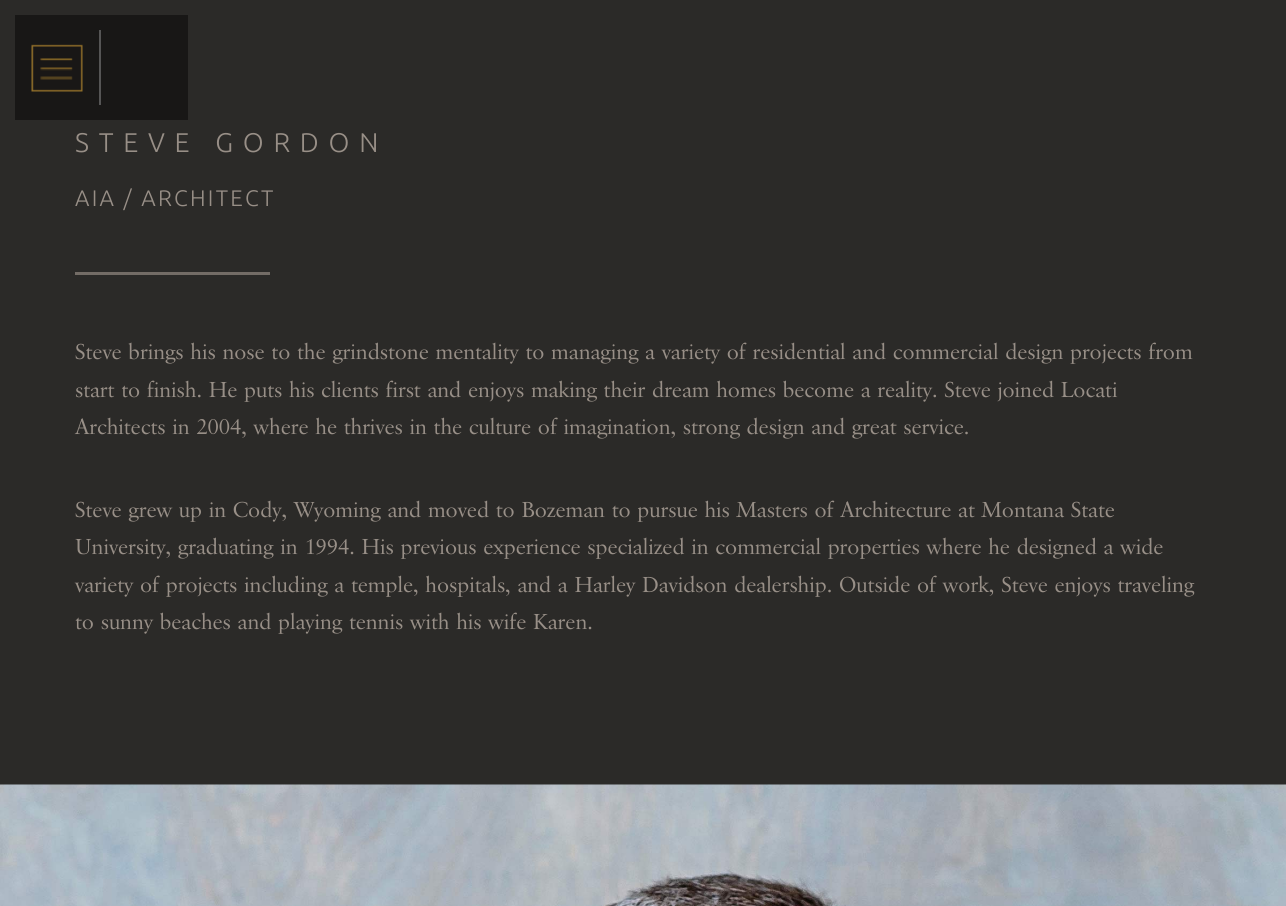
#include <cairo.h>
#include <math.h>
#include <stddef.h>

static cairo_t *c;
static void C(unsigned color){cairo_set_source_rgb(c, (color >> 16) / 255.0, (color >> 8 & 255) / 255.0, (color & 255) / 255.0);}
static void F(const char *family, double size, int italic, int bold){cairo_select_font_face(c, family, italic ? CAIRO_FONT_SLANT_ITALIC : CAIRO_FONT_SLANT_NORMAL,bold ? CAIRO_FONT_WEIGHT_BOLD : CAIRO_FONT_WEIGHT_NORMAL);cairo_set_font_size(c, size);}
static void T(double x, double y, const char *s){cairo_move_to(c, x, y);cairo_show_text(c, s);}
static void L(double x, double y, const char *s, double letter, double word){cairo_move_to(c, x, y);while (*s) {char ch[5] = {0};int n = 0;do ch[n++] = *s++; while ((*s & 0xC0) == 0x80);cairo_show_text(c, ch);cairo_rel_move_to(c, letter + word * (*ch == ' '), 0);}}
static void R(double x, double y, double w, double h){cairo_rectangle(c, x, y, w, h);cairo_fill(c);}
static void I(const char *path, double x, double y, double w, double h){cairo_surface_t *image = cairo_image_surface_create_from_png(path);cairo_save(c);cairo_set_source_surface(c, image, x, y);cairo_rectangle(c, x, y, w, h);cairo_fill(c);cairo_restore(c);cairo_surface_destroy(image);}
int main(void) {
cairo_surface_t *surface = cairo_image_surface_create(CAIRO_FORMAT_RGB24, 1286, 906);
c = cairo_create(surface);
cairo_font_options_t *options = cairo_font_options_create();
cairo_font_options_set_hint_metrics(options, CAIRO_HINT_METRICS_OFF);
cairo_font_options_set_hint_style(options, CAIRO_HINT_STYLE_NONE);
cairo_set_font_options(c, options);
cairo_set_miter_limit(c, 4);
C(0x2b2a28);
cairo_paint(c);
C(0x181716);
R(15,15,173,105);
C(0x555555);
R(99,30,2,75);
I("1.png",31,44,52,48);
F("Ubuntu Light",27,0,0);
C(0x988f87);
L(75,152,"STEVE GORDON",9.75,0);
F("Ubuntu Light",22.5,0,0);
L(75,206,"AIA / ARCHITECT",2.25,0);
C(0x736c66);
R(75,272,195,3);
F("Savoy",22.5,0,0);
C(0x988f87);
T(75,359,"Steve brings his nose to the grindstone mentality to managing a variety of residential and commercial design projects from");
T(75,397,"start to finish. He puts his clients first and enjoys making their dream homes become a reality. Steve joined Locati");
T(75,434,"Architects in 2004, where he thrives in the culture of imagination, strong design and great service.");
T(75,517,"Steve grew up in Cody, Wyoming and moved to Bozeman to pursue his Masters of Architecture at Montana State");
T(75,554,"University, graduating in 1994. His previous experience specialized in commercial properties where he designed a wide");
T(75,592,"variety of projects including a temple, hospitals, and a Harley Davidson dealership. Outside of work, Steve enjoys traveling");
T(75,629,"to sunny beaches and playing tennis with his wife Karen.");
I("2.png",0,784,1286,122);
cairo_surface_write_to_png(surface, "o.png");
cairo_font_options_destroy(options);
cairo_destroy(c);
cairo_surface_destroy(surface);
return 0;
}
